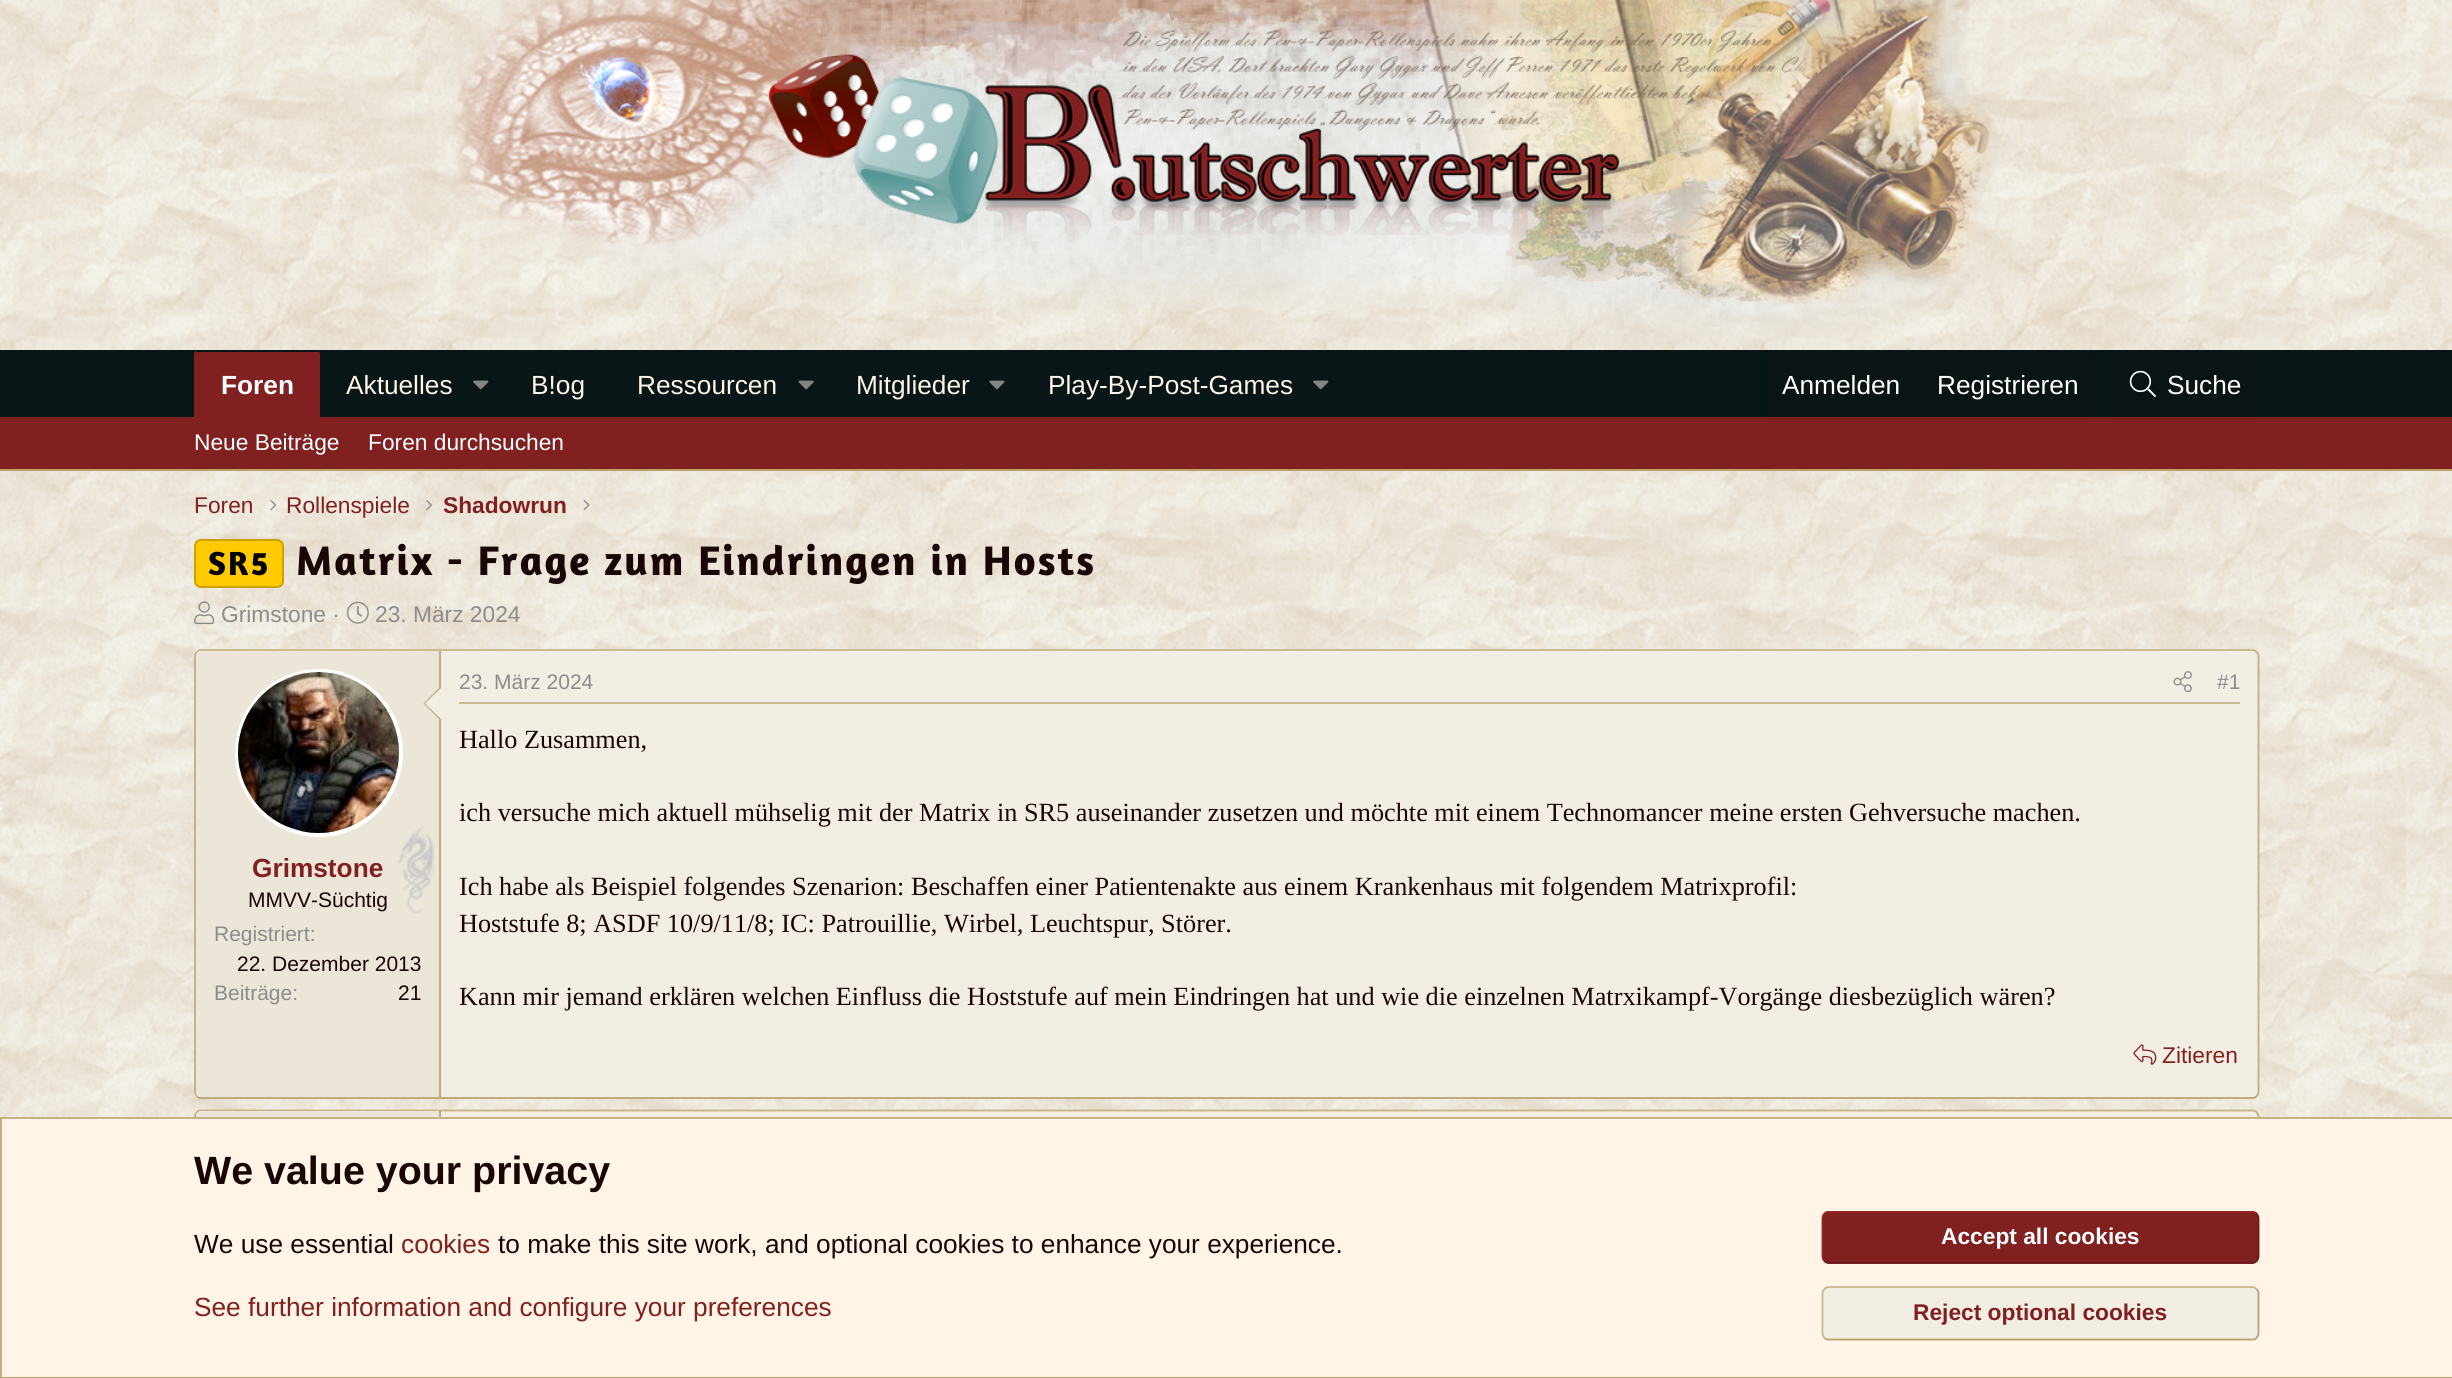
#include <cairo.h>
#include <math.h>
#include <stddef.h>

static cairo_t *c;
static void C(unsigned color){cairo_set_source_rgb(c, (color >> 16) / 255.0, (color >> 8 & 255) / 255.0, (color & 255) / 255.0);}
static void F(const char *family, double size, int italic, int bold){cairo_select_font_face(c, family, italic ? CAIRO_FONT_SLANT_ITALIC : CAIRO_FONT_SLANT_NORMAL,bold ? CAIRO_FONT_WEIGHT_BOLD : CAIRO_FONT_WEIGHT_NORMAL);cairo_set_font_size(c, size);}
static void T(double x, double y, const char *s){cairo_move_to(c, x, y);cairo_show_text(c, s);}
static void L(double x, double y, const char *s, double letter, double word){cairo_move_to(c, x, y);while (*s) {char ch[5] = {0};int n = 0;do ch[n++] = *s++; while ((*s & 0xC0) == 0x80);cairo_show_text(c, ch);cairo_rel_move_to(c, letter + word * (*ch == ' '), 0);}}
static void R(double x, double y, double w, double h){cairo_rectangle(c, x, y, w, h);cairo_fill(c);}
static void Q(double x, double y, double w, double h, double r){cairo_new_sub_path(c);cairo_arc(c, x + w - r, y + h - r, r, 0, M_PI / 2);cairo_arc(c, x + r, y + h - r, r, M_PI / 2, M_PI);cairo_arc(c, x + r, y + r, r, M_PI, 1.5 * M_PI);cairo_arc(c, x + w - r, y + r, r, 1.5 * M_PI, 2 * M_PI);cairo_close_path(c);}
static void I(const char *path, double x, double y, double w, double h){cairo_surface_t *image = cairo_image_surface_create_from_png(path);cairo_save(c);cairo_set_source_surface(c, image, x, y);cairo_rectangle(c, x, y, w, h);cairo_fill(c);cairo_restore(c);cairo_surface_destroy(image);}
int main(void) {
cairo_surface_t *surface = cairo_image_surface_create(CAIRO_FORMAT_RGB24, 2452, 1378);
c = cairo_create(surface);
cairo_font_options_t *options = cairo_font_options_create();
cairo_font_options_set_hint_metrics(options, CAIRO_HINT_METRICS_OFF);
cairo_font_options_set_hint_style(options, CAIRO_HINT_STYLE_NONE);
cairo_set_font_options(c, options);
cairo_set_miter_limit(c, 4);
C(0xffffff);
cairo_paint(c);
I("1.png",0,471,2452,646);
I("2.png",0,0,2452,350);
I("3.png",451,0,1548,347);
C(0x081618);
R(0,350,2452,67);
C(0x802020);
cairo_new_path(c);
cairo_move_to(c,198,350);
cairo_line_to(c,316,350);
cairo_curve_to(c,318,350,320,352,320,354);
cairo_line_to(c,320,417);
cairo_line_to(c,194,417);
cairo_line_to(c,194,354);
cairo_curve_to(c,194,352,196,350,198,350);
cairo_close_path(c);
cairo_fill(c);
C(0x081618);
R(196,350,123,2);
F("Liberation Sans",26.25,0,1);
C(0xffffff);
T(221,394,"Foren");
F("Liberation Sans",26.25,0,0);
C(0xfff4e5);
T(346,394,"Aktuelles");
I("4.png",473,380,16,10);
T(531,394,"B!og");
T(637,394,"Ressourcen");
I("5.png",798,380,16,10);
T(856,394,"Mitglieder");
I("6.png",989,380,16,10);
T(1048,394,"Play-By-Post-Games");
I("4.png",1313,380,16,10);
C(0x0b1415);
cairo_new_path(c);
cairo_move_to(c,1771,352);
cairo_line_to(c,2088,352);
cairo_curve_to(c,2092,352,2095,355,2095,359);
cairo_line_to(c,2095,417);
cairo_line_to(c,1764,417);
cairo_line_to(c,1764,359);
cairo_curve_to(c,1764,355,1767,352,1771,352);
cairo_close_path(c);
cairo_fill(c);
C(0xffffff);
T(1782,394,"Anmelden");
T(1937,394,"Registrieren");
C(0x0b1415);
cairo_new_path(c);
cairo_move_to(c,2116,352);
cairo_line_to(c,2252,352);
cairo_curve_to(c,2256,352,2259,355,2259,359);
cairo_line_to(c,2259,417);
cairo_line_to(c,2109,417);
cairo_line_to(c,2109,359);
cairo_curve_to(c,2109,355,2112,352,2116,352);
cairo_close_path(c);
cairo_fill(c);
I("7.png",2129,370,27,27);
C(0xffffff);
T(2167,394,"Suche");
C(0x802020);
R(0,417,2452,52);
C(0xb8a26c);
R(0,469,2452,2);
F("Liberation Sans",22.75,0,0);
C(0xffffff);
T(194,450,"Neue Beiträge");
T(368,450,"Foren durchsuchen");
C(0x802020);
T(194,513,"Foren");
I("8.png",270,500,7,11);
T(286,513,"Rollenspiele");
I("9.png",426,500,6,11);
F("Liberation Sans",22.75,0,1);
T(443,513,"Shadowrun");
I("10.png",583,500,7,11);
C(0xffcb00);
Q(195,540,88,47,6);
cairo_fill_preserve(c);
C(0xcca200);
cairo_stroke(c);
F("Amaranth",34,0,1);
C(0x000000);
L(208,575,"SR5",2.1,0);
F("Amaranth",42,0,1);
C(0x1a0606);
L(296,575,"Matrix - Frage zum Eindringen in Hosts",2.1,0);
I("11.png",194,601,21,24);
F("Liberation Sans",22.75,0,0);
C(0x8c8c8c);
T(221,622,"Grimstone ·");
I("12.png",346,601,23,23);
T(375,622,"23. März 2024");
C(0xf2eee4);
Q(194,649,2065,450,7);
cairo_fill(c);
cairo_new_path(c);
cairo_move_to(c,197,652);
cairo_curve_to(c,198,651,199.5,650,201,650);
cairo_line_to(c,2252,650);
cairo_curve_to(c,2254,650,2255.5,651,2256.5,652);
C(0xc5b387);
cairo_set_line_width(c,1.8);
cairo_stroke(c);
cairo_new_path(c);
cairo_move_to(c,2256.5,652);
cairo_curve_to(c,2257.5,653,2258.5,654.5,2258.5,656);
cairo_line_to(c,2258.5,1092);
cairo_curve_to(c,2258.5,1093.5,2257.5,1095,2256.5,1096.5);
C(0xc0ad7d);
cairo_stroke(c);
cairo_new_path(c);
cairo_move_to(c,2256.5,1096.5);
cairo_curve_to(c,2255.5,1097.5,2254,1098,2252,1098);
cairo_line_to(c,201,1098);
cairo_curve_to(c,199.5,1098,198,1097.5,197,1096.5);
C(0xb8a26c);
cairo_stroke(c);
cairo_new_path(c);
cairo_move_to(c,197,1096.5);
cairo_curve_to(c,196,1095,195,1093.5,195,1092);
cairo_line_to(c,195,656);
cairo_curve_to(c,195,654.5,196,653,197,652);
C(0xc0ad7d);
cairo_stroke(c);
C(0xece6d8);
cairo_new_path(c);
cairo_move_to(c,201,651);
cairo_line_to(c,441,651);
cairo_line_to(c,441,1097);
cairo_line_to(c,201,1097);
cairo_curve_to(c,198,1097,196,1095,196,1092);
cairo_line_to(c,196,656);
cairo_curve_to(c,196,653,198,651,201,651);
cairo_close_path(c);
cairo_fill(c);
I("13.png",397,826,38,88);
C(0xc0ad7d);
R(439,651,2,446);
C(0xf2eee4);
cairo_arc(c,319,753,82,0,2 * M_PI);
cairo_fill_preserve(c);
C(0xffffff);
cairo_set_line_width(c,4);
cairo_stroke(c);
I("14.png",238,672,161,161);
C(0xc0ad7d);
cairo_new_path(c);
cairo_move_to(c,441,686);
cairo_line_to(c,441,721);
cairo_line_to(c,423.5,703.5);
cairo_close_path(c);
cairo_fill(c);
C(0xf2eee4);
cairo_new_path(c);
cairo_move_to(c,441,688);
cairo_line_to(c,441,719);
cairo_line_to(c,425,703.5);
cairo_close_path(c);
cairo_fill(c);
F("Liberation Sans",26.25,0,1);
C(0x802020);
T(252,877,"Grimstone");
F("Liberation Sans",21,0,0);
C(0x1a0606);
T(248,907,"MMVV-Süchtig");
C(0x8c8c8c);
T(214,941,"Registriert:");
C(0x1a0606);
T(237,971,"22. Dezember 2013");
C(0x8c8c8c);
T(214,1000,"Beiträge:");
C(0x1a0606);
T(398,1000,"21");
C(0xcaba91);
R(459,702,1781,2);
C(0x8c8c8c);
T(459,689,"23. März 2024");
I("15.png",2173,671,19,22);
T(2217,689,"#1");
F("Liberation Serif",26.25,0,0);
C(0x1a0606);
T(459,748,"Hallo Zusammen,");
T(459,821,"ich versuche mich aktuell mühselig mit der Matrix in SR5 auseinander zusetzen und möchte mit einem Technomancer meine ersten Gehversuche machen.");
T(459,895,"Ich habe als Beispiel folgendes Szenarion: Beschaffen einer Patientenakte aus einem Krankenhaus mit folgendem Matrixprofil:");
T(459,932,"Hoststufe 8; ASDF 10/9/11/8; IC: Patrouillie, Wirbel, Leuchtspur, Störer.");
T(459,1005,"Kann mir jemand erklären welchen Einfluss die Hoststufe auf mein Eindringen hat und wie die einzelnen Matrxikampf-Vorgänge diesbezüglich wären?");
I("16.png",2133,1044,24,21);
F("Liberation Sans",22.75,0,0);
C(0x802020);
T(2162,1063,"Zitieren");
C(0xf2eee4);
Q(194,1110,2065,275,7);
cairo_fill(c);
cairo_new_path(c);
cairo_move_to(c,197,1112);
cairo_curve_to(c,198,1111,199.5,1110.5,201,1110.5);
cairo_line_to(c,2252,1110.5);
cairo_curve_to(c,2254,1110.5,2255.5,1111,2256.5,1112);
C(0xc5b387);
cairo_set_line_width(c,1.8);
cairo_stroke(c);
cairo_new_path(c);
cairo_move_to(c,2256.5,1112);
cairo_curve_to(c,2257.5,1113.5,2258.5,1115,2258.5,1116.5);
cairo_line_to(c,2258.5,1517);
cairo_curve_to(c,2258.5,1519,2257.5,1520.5,2256.5,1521.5);
C(0xc0ad7d);
cairo_stroke(c);
cairo_new_path(c);
cairo_move_to(c,197,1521.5);
cairo_curve_to(c,196,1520.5,195,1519,195,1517);
cairo_line_to(c,195,1116.5);
cairo_curve_to(c,195,1115,196,1113.5,197,1112);
cairo_stroke(c);
C(0xece6d8);
cairo_new_path(c);
cairo_move_to(c,201,1111);
cairo_line_to(c,441,1111);
cairo_line_to(c,441,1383);
cairo_line_to(c,201,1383);
cairo_curve_to(c,198,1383,196,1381,196,1378);
cairo_line_to(c,196,1116);
cairo_curve_to(c,196,1113,198,1111,201,1111);
cairo_close_path(c);
cairo_fill(c);
C(0xc0ad7d);
R(439,1111,2,6);
C(0xfff4e5);
R(2,1119,2450,258);
C(0xc5b387);
R(0,1117,2452,2);
C(0xb8a26c);
R(0,1377,2452,1);
C(0xc0ad7d);
R(0,1117,2,261);
F("Liberation Sans",39.4,0,1);
C(0x1a0606);
T(194,1184,"We value your privacy");
F("Liberation Sans",26.25,0,0);
T(194,1253,"We use essential");
C(0x802020);
T(401,1253,"cookies");
C(0x1a0606);
T(498,1253,"to make this site work, and optional cookies to enhance your experience.");
C(0x802020);
T(194,1316,"See further information and configure your preferences");
Q(1822,1211,437,53,7);
cairo_fill(c);
cairo_new_path(c);
cairo_move_to(c,2256.5,1213.5);
cairo_curve_to(c,2257.5,1215,2258.5,1216.5,2258.5,1218);
cairo_line_to(c,2258.5,1256.5);
cairo_curve_to(c,2258.5,1258,2257.5,1259.5,2256.5,1261);
cairo_curve_to(c,2255.5,1262,2254,1262.5,2252,1262.5);
cairo_line_to(c,1829,1262.5);
cairo_curve_to(c,1827,1262.5,1825.5,1262,1824.5,1261);
C(0x6c1b1b);
cairo_stroke(c);
cairo_new_path(c);
cairo_move_to(c,1824.5,1261);
cairo_curve_to(c,1823.5,1259.5,1822.5,1258,1822.5,1256.5);
cairo_line_to(c,1822.5,1218);
cairo_curve_to(c,1822.5,1216.5,1823.5,1215,1824.5,1213.5);
cairo_curve_to(c,1825.5,1212.5,1827,1212,1829,1212);
cairo_line_to(c,2252,1212);
cairo_curve_to(c,2254,1212,2255.5,1212.5,2256.5,1213.5);
C(0x942525);
cairo_stroke(c);
F("Liberation Sans",22.75,0,1);
C(0xffffff);
T(1941,1244,"Accept all cookies");
C(0xf2eee4);
Q(1822,1286,437,55,7);
cairo_fill(c);
cairo_new_path(c);
cairo_move_to(c,2256.5,1289);
cairo_curve_to(c,2257.5,1290,2258.5,1291.5,2258.5,1293);
cairo_line_to(c,2258.5,1333.5);
cairo_curve_to(c,2258.5,1335,2257.5,1336.5,2256.5,1338);
cairo_curve_to(c,2255.5,1339,2254,1339.5,2252,1339.5);
cairo_line_to(c,1829,1339.5);
cairo_curve_to(c,1827,1339.5,1825.5,1339,1824.5,1338);
C(0xb8a26c);
cairo_stroke(c);
cairo_new_path(c);
cairo_move_to(c,1824.5,1338);
cairo_curve_to(c,1823.5,1336.5,1822.5,1335,1822.5,1333.5);
cairo_line_to(c,1822.5,1293);
cairo_curve_to(c,1822.5,1291.5,1823.5,1290,1824.5,1289);
cairo_curve_to(c,1825.5,1288,1827,1287,1829,1287);
cairo_line_to(c,2252,1287);
cairo_curve_to(c,2254,1287,2255.5,1288,2256.5,1289);
C(0xc9b88e);
cairo_stroke(c);
C(0x802020);
T(1913,1320,"Reject optional cookies");
cairo_surface_write_to_png(surface, "o.png");
cairo_font_options_destroy(options);
cairo_destroy(c);
cairo_surface_destroy(surface);
return 0;
}
